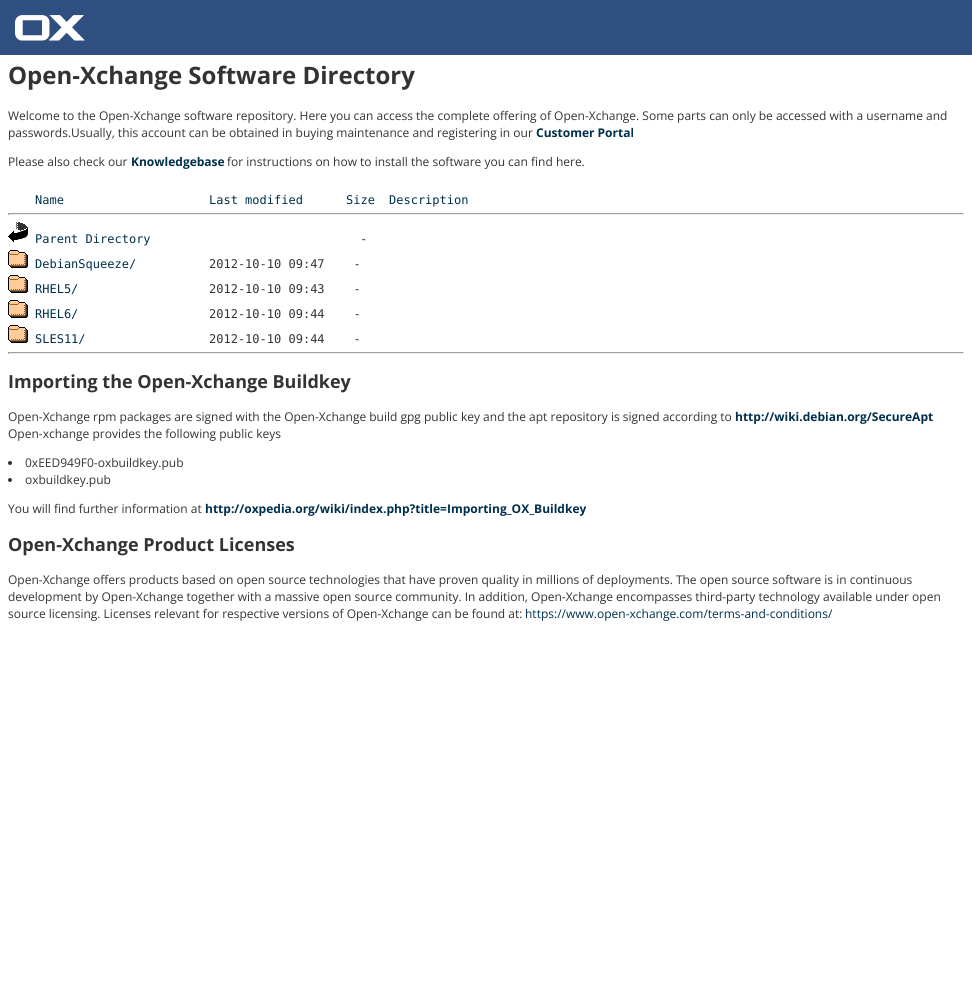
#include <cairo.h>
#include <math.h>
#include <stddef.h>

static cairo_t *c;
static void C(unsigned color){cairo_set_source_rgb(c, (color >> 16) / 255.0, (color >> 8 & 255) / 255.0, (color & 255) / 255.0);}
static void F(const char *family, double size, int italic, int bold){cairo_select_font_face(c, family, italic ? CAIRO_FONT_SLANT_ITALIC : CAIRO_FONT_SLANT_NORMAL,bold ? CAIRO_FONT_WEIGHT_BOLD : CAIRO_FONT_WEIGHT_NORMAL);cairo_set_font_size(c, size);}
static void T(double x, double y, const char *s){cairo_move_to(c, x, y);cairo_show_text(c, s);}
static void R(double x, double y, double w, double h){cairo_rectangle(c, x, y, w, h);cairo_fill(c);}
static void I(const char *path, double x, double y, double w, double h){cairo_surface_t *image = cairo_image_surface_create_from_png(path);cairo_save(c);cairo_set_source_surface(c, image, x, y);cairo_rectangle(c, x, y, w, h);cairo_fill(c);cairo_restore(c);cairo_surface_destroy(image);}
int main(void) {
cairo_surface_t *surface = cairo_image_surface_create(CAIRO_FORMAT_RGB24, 972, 1006);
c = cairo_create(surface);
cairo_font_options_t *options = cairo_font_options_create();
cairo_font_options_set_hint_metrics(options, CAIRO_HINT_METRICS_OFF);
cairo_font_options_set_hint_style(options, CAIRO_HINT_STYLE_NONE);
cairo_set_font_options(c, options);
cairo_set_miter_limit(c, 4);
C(0xffffff);
cairo_paint(c);
C(0x304f81);
R(0,0,972,55);
I("1.png",15,15,70,26);
F("Open Sans",24,0,1);
C(0x333333);
T(8,84,"Open-Xchange Software Directory");
F("Open Sans",12,0,0);
T(8,120,"Welcome to the Open-Xchange software repository. Here you can access the complete offering of Open-Xchange. Some parts can only be accessed with a username and");
T(8,137,"passwords.Usually, this account can be obtained in buying maintenance and registering in our");
F("Open Sans",12,0,1);
C(0x002f4b);
T(536,137,"Customer Portal");
F("Open Sans",12,0,0);
C(0x333333);
T(8,166,"Please also check our");
F("Open Sans",12,0,1);
C(0x002f4b);
T(131,166,"Knowledgebase");
F("Open Sans",12,0,0);
C(0x333333);
T(227,166,"for instructions on how to install the software you can find here.");
F("DejaVu Sans Mono",12,0,0);
C(0x002f4b);
T(35,204,"Name");
T(209,204,"Last modified");
T(346,204,"Size");
T(389,204,"Description");
C(0x9f9f9f);
R(8,213,956,1);
C(0xeeeeee);
R(963,213,1,2);
R(8,214,956,1);
C(0x9f9f9f);
R(8,213,1,2);
I("2.png",8,222,20,20);
C(0x002f4b);
T(35,243,"Parent Directory");
C(0x333333);
T(360,243,"-");
I("3.png",8,250,20,18);
C(0x002f4b);
T(35,268,"DebianSqueeze/");
C(0x333333);
T(209,268,"2012-10-10 09:47    -");
I("3.png",8,275,20,18);
C(0x002f4b);
T(35,293,"RHEL5/");
C(0x333333);
T(209,293,"2012-10-10 09:43    -");
I("3.png",8,300,20,18);
C(0x002f4b);
T(35,318,"RHEL6/");
C(0x333333);
T(209,318,"2012-10-10 09:44    -");
I("3.png",8,325,20,18);
C(0x002f4b);
T(35,343,"SLES11/");
C(0x333333);
T(209,343,"2012-10-10 09:44    -");
C(0x9f9f9f);
R(8,352,956,1);
C(0xeeeeee);
R(963,352,1,2);
R(8,353,956,1);
C(0x9f9f9f);
R(8,352,1,2);
F("Open Sans",18,0,1);
C(0x333333);
T(8,388,"Importing the Open-Xchange Buildkey");
F("Open Sans",12,0,0);
T(8,421,"Open-Xchange rpm packages are signed with the Open-Xchange build gpg public key and the apt repository is signed according to");
F("Open Sans",12,0,1);
C(0x002f4b);
T(735,421,"http://wiki.debian.org/SecureApt");
F("Open Sans",12,0,0);
C(0x333333);
T(8,438,"Open-xchange provides the following public keys");
cairo_new_path(c);
cairo_arc(c,10,463,2,0,2 * M_PI);
cairo_fill(c);
T(25,467,"0xEED949F0-oxbuildkey.pub");
cairo_new_path(c);
cairo_arc(c,10,480,2,0,2 * M_PI);
cairo_fill(c);
T(25,484,"oxbuildkey.pub");
T(8,513,"You will find further information at");
F("Open Sans",12,0,1);
C(0x002f4b);
T(205,513,"http://oxpedia.org/wiki/index.php?title=Importing_OX_Buildkey");
F("Open Sans",18,0,1);
C(0x333333);
T(8,551,"Open-Xchange Product Licenses");
F("Open Sans",12,0,0);
T(8,584,"Open-Xchange offers products based on open source technologies that have proven quality in millions of deployments. The open source software is in continuous");
T(8,601,"development by Open-Xchange together with a massive open source community. In addition, Open-Xchange encompasses third-party technology available under open");
T(8,618,"source licensing. Licenses relevant for respective versions of Open-Xchange can be found at:");
C(0x002f4b);
T(525,618,"https://www.open-xchange.com/terms-and-conditions/");
cairo_surface_write_to_png(surface, "o.png");
cairo_font_options_destroy(options);
cairo_destroy(c);
cairo_surface_destroy(surface);
return 0;
}
